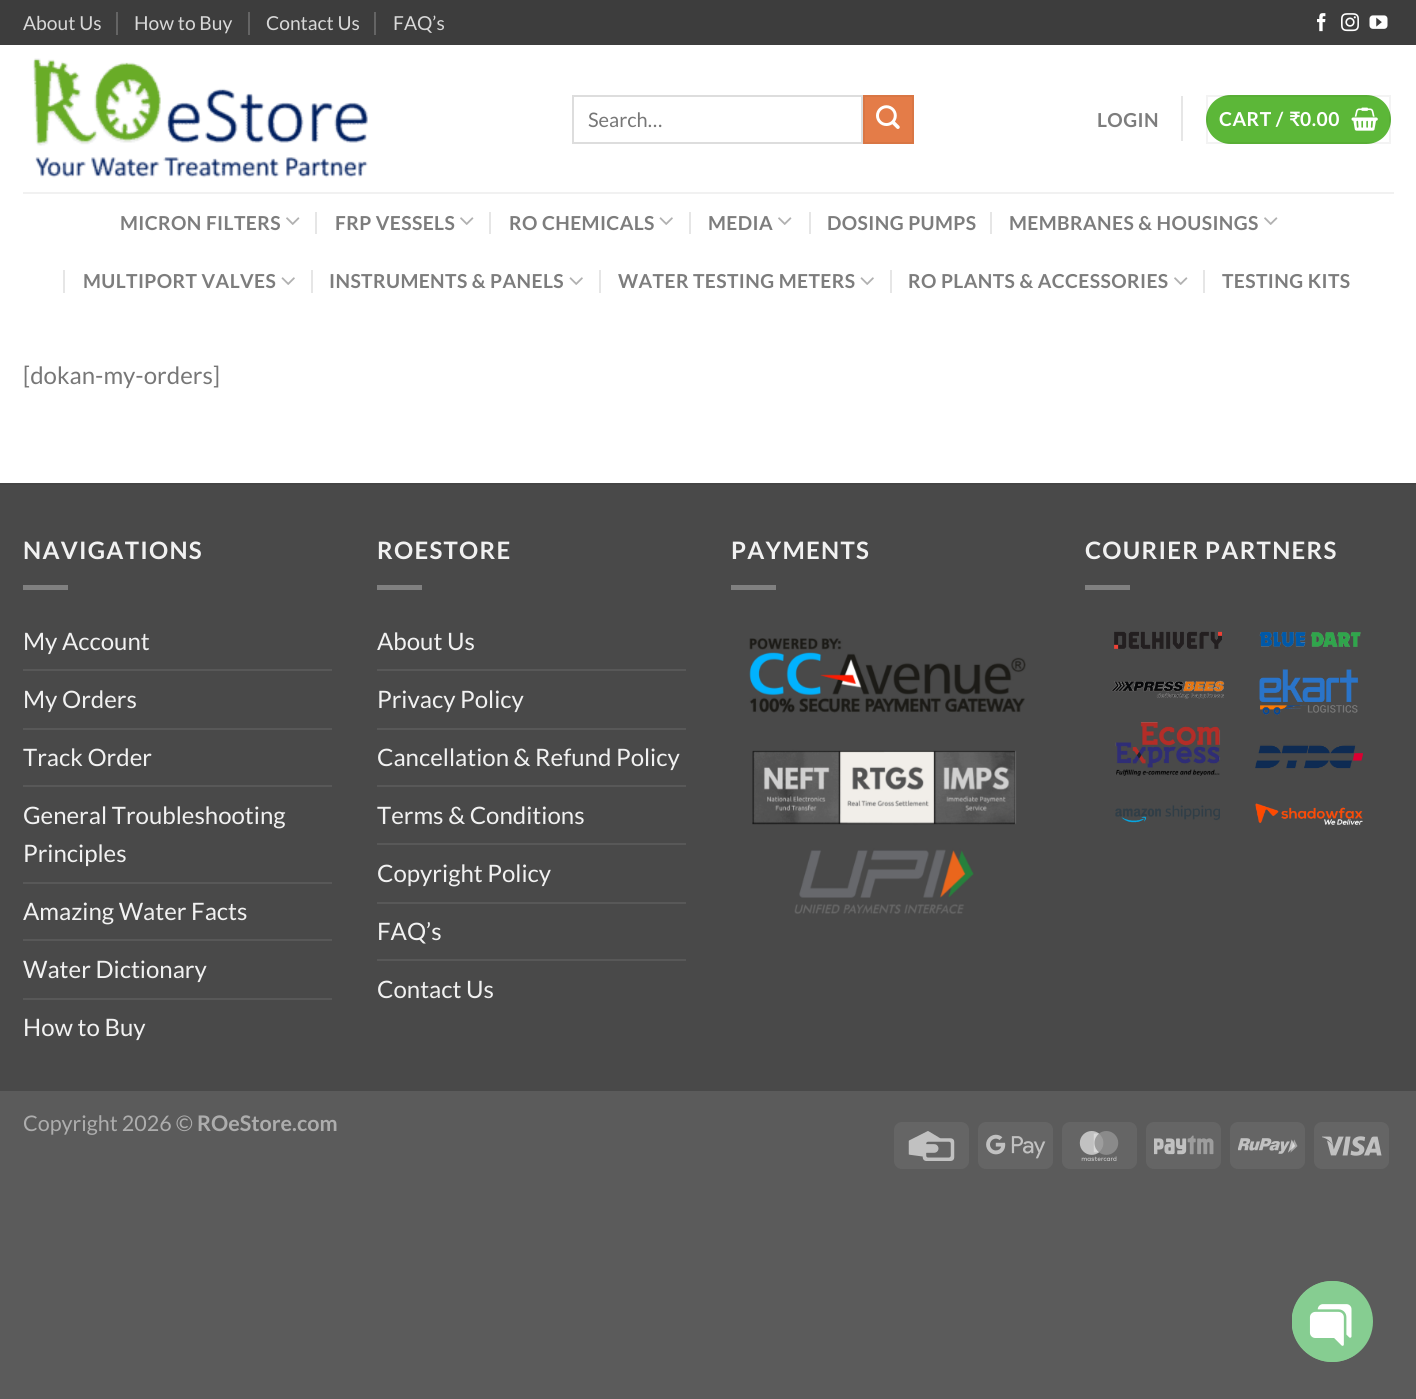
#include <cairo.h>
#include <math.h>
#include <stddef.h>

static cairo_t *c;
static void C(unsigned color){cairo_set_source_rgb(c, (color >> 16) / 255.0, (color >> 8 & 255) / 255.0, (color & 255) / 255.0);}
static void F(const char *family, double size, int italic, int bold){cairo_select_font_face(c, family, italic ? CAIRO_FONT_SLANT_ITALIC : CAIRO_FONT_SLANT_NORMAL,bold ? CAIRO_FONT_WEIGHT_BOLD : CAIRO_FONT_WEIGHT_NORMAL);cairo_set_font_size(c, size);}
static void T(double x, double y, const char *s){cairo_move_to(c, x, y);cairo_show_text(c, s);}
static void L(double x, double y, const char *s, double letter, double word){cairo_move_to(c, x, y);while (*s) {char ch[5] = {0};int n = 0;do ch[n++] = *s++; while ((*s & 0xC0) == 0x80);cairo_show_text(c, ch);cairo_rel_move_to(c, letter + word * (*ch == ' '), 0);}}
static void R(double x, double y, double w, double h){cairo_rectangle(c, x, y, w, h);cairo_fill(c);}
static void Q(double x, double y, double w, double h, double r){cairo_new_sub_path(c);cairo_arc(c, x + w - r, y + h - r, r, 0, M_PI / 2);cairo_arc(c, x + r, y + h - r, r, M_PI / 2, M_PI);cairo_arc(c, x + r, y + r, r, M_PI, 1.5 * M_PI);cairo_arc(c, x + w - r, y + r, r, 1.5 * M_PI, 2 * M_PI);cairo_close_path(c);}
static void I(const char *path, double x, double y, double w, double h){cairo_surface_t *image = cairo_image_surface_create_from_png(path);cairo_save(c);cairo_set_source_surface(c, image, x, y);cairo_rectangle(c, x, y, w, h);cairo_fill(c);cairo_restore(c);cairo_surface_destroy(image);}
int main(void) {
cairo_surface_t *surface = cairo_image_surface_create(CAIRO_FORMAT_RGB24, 1416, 1399);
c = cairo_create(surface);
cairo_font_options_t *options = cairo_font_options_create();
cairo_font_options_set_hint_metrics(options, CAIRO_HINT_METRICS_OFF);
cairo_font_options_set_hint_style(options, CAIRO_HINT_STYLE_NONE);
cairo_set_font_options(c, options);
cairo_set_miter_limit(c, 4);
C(0x5b5b5b);
cairo_paint(c);
C(0xffffff);
R(0,45,1416,438);
C(0x3d3d3d);
R(0,0,1416,45);
F("Lato",19.25,0,0);
C(0xd8d8d8);
T(23,30,"About Us");
C(0x646464);
R(116,12,2,23);
C(0xd8d8d8);
T(134,30,"How to Buy");
C(0x646464);
R(248,12,2,23);
C(0xd8d8d8);
T(266,30,"Contact Us");
C(0x646464);
R(374,12,2,23);
C(0xd8d8d8);
T(393,30,"FAQ’s");
I("1.png",1317,13,9,19);
I("2.png",1341,13,18,19);
I("3.png",1369,15,19,14);
I("4.png",33,58,335,120);
cairo_rectangle(c,573,96,289,47);
C(0xdddddd);
cairo_stroke(c);
F("Lato",20,0,0);
C(0x777777);
T(588,127,"Search…");
C(0xe47c48);
cairo_rectangle(c,864,96,49,47);
cairo_fill_preserve(c);
C(0xd97644);
cairo_stroke(c);
I("5.png",876,105,24,24);
F("Lato",19.25,0,1);
C(0x7d7d7d);
L(1097,127,"LOGIN",.4,0);
C(0xe6e6e6);
R(1181,96,2,45);
C(0x5cb738);
Q(1206,95,185,49,24.5);
cairo_fill(c);
cairo_rectangle(c,1207,96,183,47);
cairo_set_source_rgba(c,0,0,0,0.05);
cairo_stroke(c);
C(0xffffff);
L(1219,126,"CART /",.5,0);
F("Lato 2",19.25,0,1);
L(1289,126,"₹",.5,0);
F("Lato",19.25,0,1);
L(1300,126,"0.00",.5,0);
I("6.png",1351,107,27,24);
C(0xf1f1f1);
R(23,192,1371,2);
C(0x7d7d7d);
L(120,230,"MICRON FILTERS",.4,0);
I("7.png",286,217,14,8);
C(0xe6e6e6);
R(315,212,2,22);
C(0x7d7d7d);
L(335,230,"FRP VESSELS",.4,0);
I("7.png",460,217,14,8);
C(0xe6e6e6);
R(489,212,2,22);
C(0x7d7d7d);
L(509,230,"RO CHEMICALS",.4,0);
I("8.png",659,217,14,8);
C(0xe6e6e6);
R(689,212,2,22);
C(0x7d7d7d);
L(708,230,"MEDIA",.4,0);
I("7.png",778,217,14,8);
C(0xe6e6e6);
R(809,212,2,22);
C(0x7d7d7d);
L(827,230,"DOSING PUMPS",.4,0);
C(0xe6e6e6);
R(990,212,2,22);
C(0x7d7d7d);
L(1009,230,"MEMBRANES & HOUSINGS",.4,0);
I("7.png",1264,217,14,8);
C(0xe6e6e6);
R(63,270,2,23);
C(0x7d7d7d);
L(83,288,"MULTIPORT VALVES",.4,0);
I("8.png",281,277,14,8);
C(0xe6e6e6);
R(311,270,2,23);
C(0x7d7d7d);
L(329,288,"INSTRUMENTS & PANELS",.4,0);
I("8.png",569,277,14,8);
C(0xe6e6e6);
R(599,270,2,23);
C(0x7d7d7d);
L(618,288,"WATER TESTING METERS",.4,0);
I("8.png",860,277,14,8);
C(0xe6e6e6);
R(890,270,2,23);
C(0x7d7d7d);
L(908,288,"RO PLANTS & ACCESSORIES",.4,0);
I("7.png",1174,277,14,8);
C(0xe6e6e6);
R(1203,270,2,23);
C(0x7d7d7d);
L(1222,288,"TESTING KITS",.4,0);
F("Lato",24,0,0);
C(0x777777);
T(23,384,"[dokan-my-orders]");
C(0x494949);
R(0,485,1416,606);
C(0x454545);
R(0,483,1416,2);
F("Lato",24,0,1);
C(0xf1f1f1);
L(23,559,"NAVIGATIONS",1.25,0);
C(0x808080);
R(23,585,45,5);
F("Lato",24,0,0);
C(0xf1f1f1);
T(23,650,"My Account");
C(0x585858);
R(23,669,309,2);
C(0xf1f1f1);
T(23,708,"My Orders");
C(0x585858);
R(23,728,309,2);
C(0xf1f1f1);
T(23,766,"Track Order");
C(0x585858);
R(23,785,309,2);
C(0xf1f1f1);
T(23,824,"General Troubleshooting");
T(23,862,"Principles");
C(0x585858);
R(23,882,309,2);
C(0xf1f1f1);
T(23,920,"Amazing Water Facts");
C(0x585858);
R(23,939,309,2);
C(0xf1f1f1);
T(23,978,"Water Dictionary");
C(0x585858);
R(23,998,309,2);
C(0xf1f1f1);
T(23,1036,"How to Buy");
F("Lato",24,0,1);
L(377,559,"ROESTORE",1.25,0);
C(0x808080);
R(377,585,45,5);
F("Lato",24,0,0);
C(0xf1f1f1);
T(377,650,"About Us");
C(0x585858);
R(377,669,309,2);
C(0xf1f1f1);
T(377,708,"Privacy Policy");
C(0x585858);
R(377,728,309,2);
C(0xf1f1f1);
T(377,766,"Cancellation & Refund Policy");
C(0x585858);
R(377,785,309,2);
C(0xf1f1f1);
T(377,824,"Terms & Conditions");
C(0x585858);
R(377,843,309,2);
C(0xf1f1f1);
T(377,882,"Copyright Policy");
C(0x585858);
R(377,902,309,2);
C(0xf1f1f1);
T(377,940,"FAQ’s");
C(0x585858);
R(377,959,309,2);
C(0xf1f1f1);
T(377,998,"Contact Us");
F("Lato",24,0,1);
L(731,559,"PAYMENTS",1.25,0);
C(0x808080);
R(731,585,45,5);
I("9.png",749,638,277,276);
C(0xf1f1f1);
L(1085,559,"COURIER PARTNERS",1.25,0);
C(0x808080);
R(1085,585,45,5);
I("10.png",1111,631,253,194);
F("Lato",21.5,0,0);
C(0xadadad);
T(23,1131,"Copyright 2026 ©");
F("Lato",21.5,0,1);
T(197,1131,"ROeStore.com");
C(0x656565);
Q(894,1122,75,47,8);
cairo_fill(c);
I("11.png",908,1131,47,30);
Q(978,1122,75,47,8);
cairo_fill(c);
I("12.png",986,1134,60,25);
Q(1062,1122,75,47,8);
cairo_fill(c);
I("13.png",1079,1131,40,30);
Q(1146,1122,75,47,8);
cairo_fill(c);
I("14.png",1154,1135,60,20);
Q(1230,1122,75,47,8);
cairo_fill(c);
I("15.png",1238,1138,60,16);
Q(1314,1122,75,47,8);
cairo_fill(c);
I("16.png",1322,1136,60,20);
C(0x86cd91);
cairo_arc(c,1332.5,1321.5,40.5,0,2 * M_PI);
cairo_fill(c);
I("17.png",1292,1281,63,81);
cairo_surface_write_to_png(surface, "o.png");
cairo_font_options_destroy(options);
cairo_destroy(c);
cairo_surface_destroy(surface);
return 0;
}
